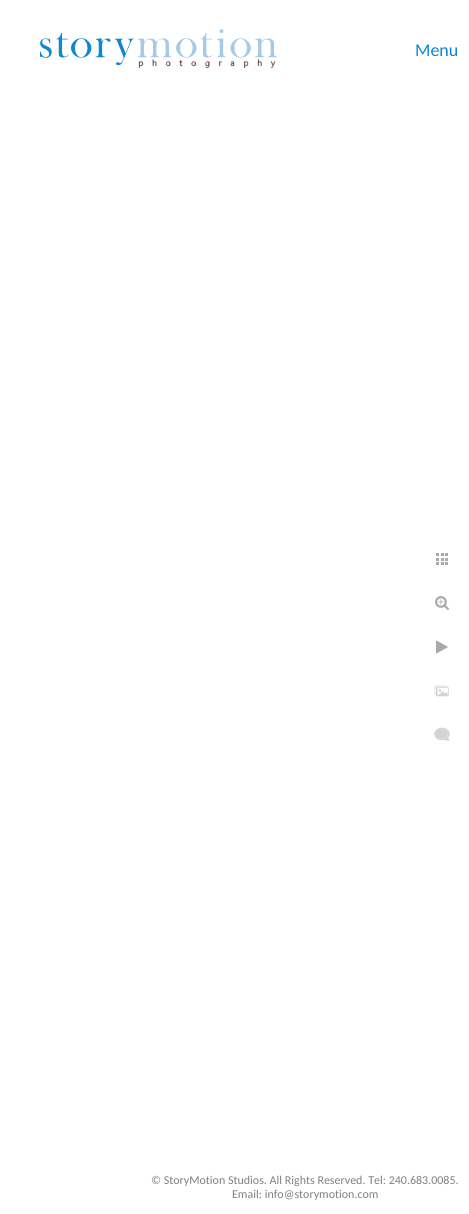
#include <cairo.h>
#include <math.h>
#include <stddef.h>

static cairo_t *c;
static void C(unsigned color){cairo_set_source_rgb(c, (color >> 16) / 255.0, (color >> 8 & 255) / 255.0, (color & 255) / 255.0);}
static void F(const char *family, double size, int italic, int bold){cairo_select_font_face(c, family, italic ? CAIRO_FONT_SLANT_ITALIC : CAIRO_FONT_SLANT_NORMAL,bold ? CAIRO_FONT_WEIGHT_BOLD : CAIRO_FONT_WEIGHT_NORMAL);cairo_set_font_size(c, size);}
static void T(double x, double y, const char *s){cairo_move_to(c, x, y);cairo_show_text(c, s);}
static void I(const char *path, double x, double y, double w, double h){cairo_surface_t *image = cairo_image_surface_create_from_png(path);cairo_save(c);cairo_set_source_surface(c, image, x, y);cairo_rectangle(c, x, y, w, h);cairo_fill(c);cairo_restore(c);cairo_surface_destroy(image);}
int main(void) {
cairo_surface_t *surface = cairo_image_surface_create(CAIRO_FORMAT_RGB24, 469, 1214);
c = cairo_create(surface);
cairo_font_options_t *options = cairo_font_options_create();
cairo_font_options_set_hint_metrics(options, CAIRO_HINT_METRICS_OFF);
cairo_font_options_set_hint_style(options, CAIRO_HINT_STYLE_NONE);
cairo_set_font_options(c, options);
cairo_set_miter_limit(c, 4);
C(0xffffff);
cairo_paint(c);
I("1.png",39,29,238,40);
F("Carlito",18,0,0);
C(0x0b88d1);
T(415,56,"Menu");
I("2.png",436,553,12,12);
I("3.png",435,596,14,14);
I("4.png",436,640,12,14);
I("5.png",434,685,15,12);
I("6.png",434,727,16,14);
F("Carlito",12,0,0);
C(0x808080);
T(151,1184,"© StoryMotion Studios. All Rights Reserved. Tel: 240.683.0085.");
T(232,1198,"Email: info@storymotion.com");
cairo_surface_write_to_png(surface, "o.png");
cairo_font_options_destroy(options);
cairo_destroy(c);
cairo_surface_destroy(surface);
return 0;
}
